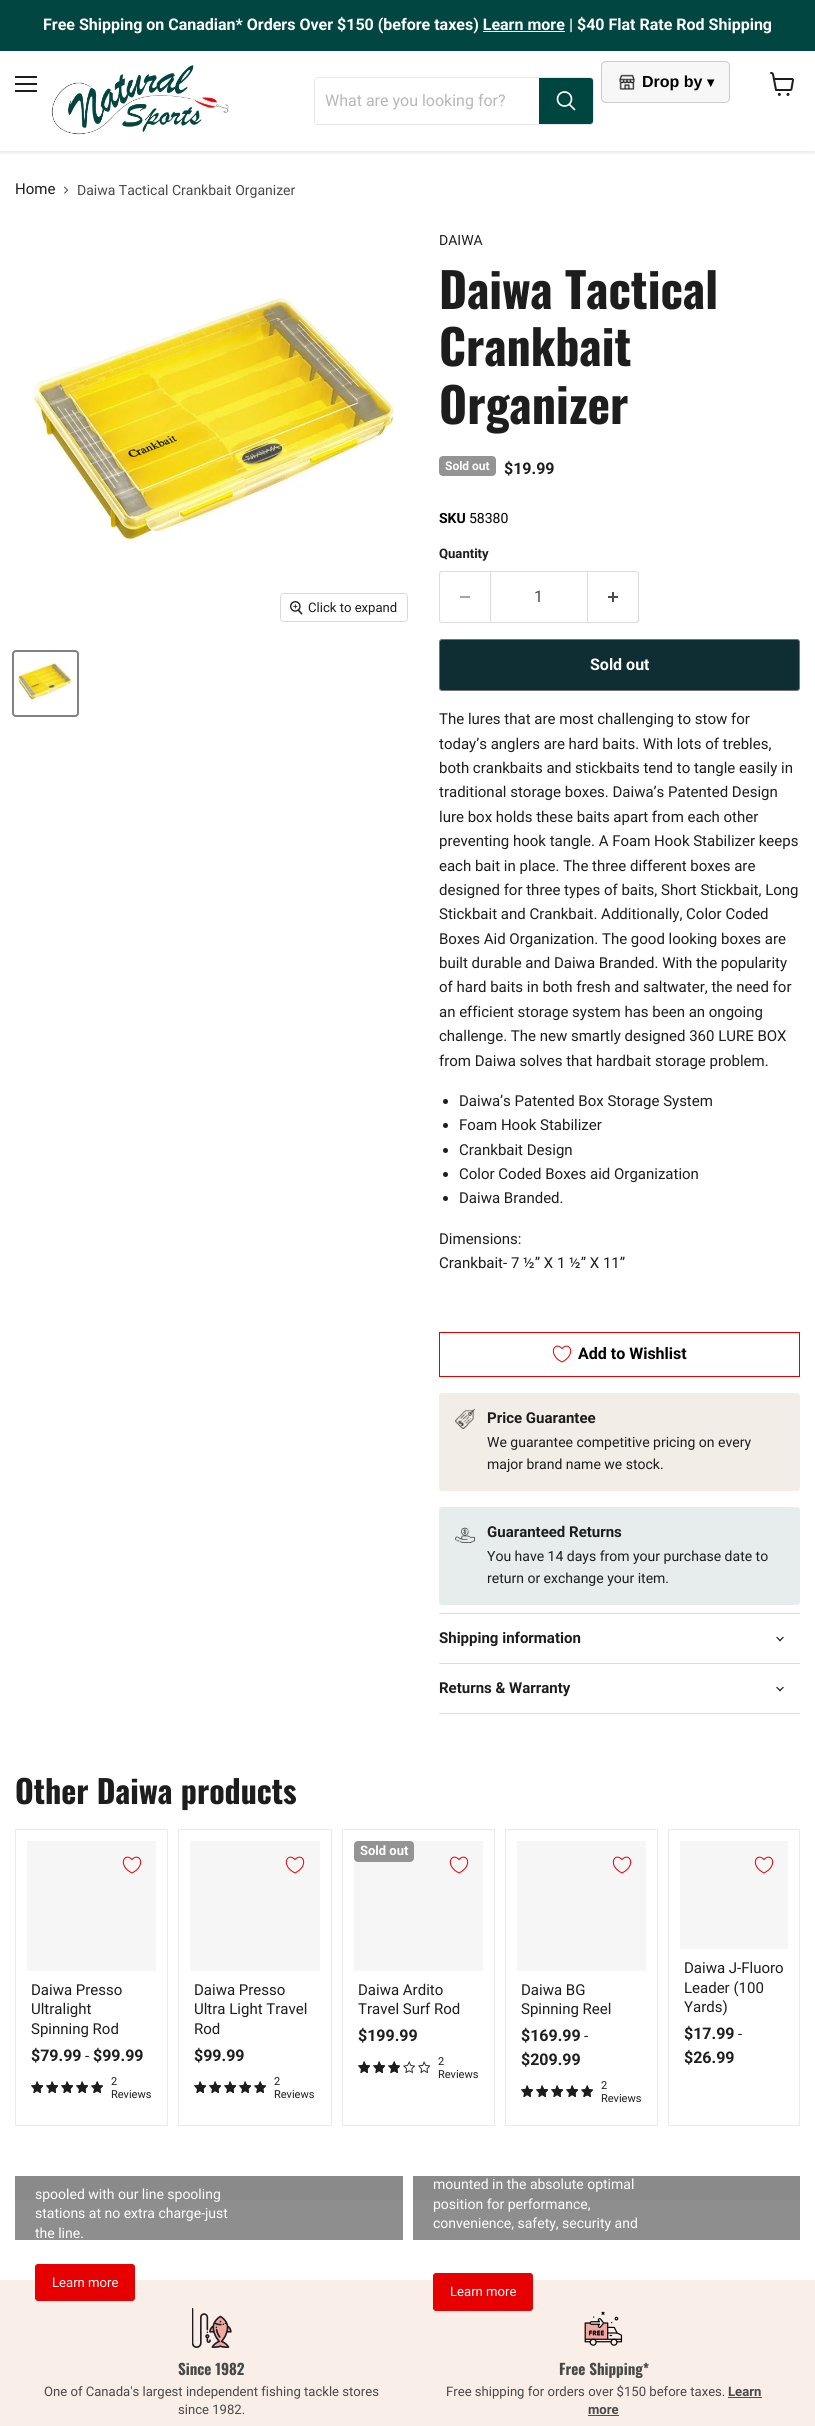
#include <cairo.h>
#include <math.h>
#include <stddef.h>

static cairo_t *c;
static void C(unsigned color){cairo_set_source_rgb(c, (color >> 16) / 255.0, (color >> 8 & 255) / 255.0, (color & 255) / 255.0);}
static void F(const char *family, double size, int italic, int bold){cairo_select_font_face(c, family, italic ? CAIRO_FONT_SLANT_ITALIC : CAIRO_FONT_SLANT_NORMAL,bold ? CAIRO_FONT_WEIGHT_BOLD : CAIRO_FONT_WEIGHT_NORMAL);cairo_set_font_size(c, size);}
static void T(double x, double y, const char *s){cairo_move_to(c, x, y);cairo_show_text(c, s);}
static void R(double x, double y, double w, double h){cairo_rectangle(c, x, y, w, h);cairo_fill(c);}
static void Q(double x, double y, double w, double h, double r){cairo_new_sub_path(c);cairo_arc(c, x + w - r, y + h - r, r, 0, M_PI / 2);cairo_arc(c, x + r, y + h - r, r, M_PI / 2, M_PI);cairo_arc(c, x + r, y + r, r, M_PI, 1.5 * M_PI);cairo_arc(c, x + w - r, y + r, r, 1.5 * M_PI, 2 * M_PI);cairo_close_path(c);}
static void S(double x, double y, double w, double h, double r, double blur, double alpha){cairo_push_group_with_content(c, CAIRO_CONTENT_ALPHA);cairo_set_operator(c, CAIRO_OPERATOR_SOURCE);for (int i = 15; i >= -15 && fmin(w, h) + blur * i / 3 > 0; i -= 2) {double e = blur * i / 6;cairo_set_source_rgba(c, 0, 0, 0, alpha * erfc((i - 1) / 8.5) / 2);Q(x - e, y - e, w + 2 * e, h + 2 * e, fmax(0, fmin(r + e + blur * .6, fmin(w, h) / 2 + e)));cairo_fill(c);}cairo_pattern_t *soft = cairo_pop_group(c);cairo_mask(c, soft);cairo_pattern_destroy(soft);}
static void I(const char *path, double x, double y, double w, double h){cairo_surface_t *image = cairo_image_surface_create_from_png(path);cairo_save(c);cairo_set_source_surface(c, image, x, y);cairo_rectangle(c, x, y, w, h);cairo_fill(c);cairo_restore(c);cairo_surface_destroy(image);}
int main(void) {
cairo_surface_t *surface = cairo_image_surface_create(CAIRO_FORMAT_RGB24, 815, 2426);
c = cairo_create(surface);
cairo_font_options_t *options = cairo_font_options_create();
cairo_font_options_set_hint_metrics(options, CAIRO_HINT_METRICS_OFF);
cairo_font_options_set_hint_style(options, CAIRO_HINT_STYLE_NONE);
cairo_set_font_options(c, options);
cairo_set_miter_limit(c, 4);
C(0xffffff);
cairo_paint(c);
C(0x8e8e8e);
R(413,2200,387,40);
R(15,2200,388,40);
cairo_save(c);
cairo_rectangle(c,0,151,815,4);
cairo_clip(c);
C(0x808080);
S(0,52,815,100,0,2,.25);
cairo_restore(c);
C(0x014640);
R(0,0,815,51);
F("Roboto",16,0,1);
C(0xffffff);
T(43,30,"Free Shipping on Canadian* Orders Over $150 (before taxes) Learn more");
T(569,30,"| $40 Flat Rate Rod Shipping");
R(483,31,82,1);
C(0x1d1d1d);
R(15,76,22,2);
R(15,83,22,2);
R(15,90,22,2);
C(0xf7f7f7);
Q(601.5,61.5,128,41,4.5);
cairo_fill_preserve(c);
C(0xcccccc);
cairo_set_line_width(c,1);
cairo_stroke(c);
I("1.png",619,74,16,16);
F("Liberation Sans",16,0,1);
C(0x000000);
T(642,87,"Drop by");
F("DejaVu Sans",14,0,1);
T(707,87,"▾");
I("2.png",770,72,24,24);
I("3.png",51,65,178,70);
Q(314.5,77.5,279,47,3.5);
C(0xe6e6e6);
cairo_stroke(c);
C(0xffffff);
cairo_new_path(c);
cairo_move_to(c,318,78);
cairo_line_to(c,539,78);
cairo_line_to(c,539,124);
cairo_line_to(c,318,124);
cairo_curve_to(c,316.5,124,315,122.5,315,121);
cairo_line_to(c,315,81);
cairo_curve_to(c,315,79.5,316.5,78,318,78);
cairo_close_path(c);
cairo_fill(c);
F("Roboto",16,0,0);
C(0xb8b8b8);
T(325,106,"What are you looking for?");
C(0x004640);
cairo_new_path(c);
cairo_move_to(c,539.5,78.5);
cairo_line_to(c,590,78.5);
cairo_curve_to(c,591.5,78.5,592.5,79.5,592.5,81);
cairo_line_to(c,592.5,121);
cairo_curve_to(c,592.5,122.5,591.5,123.5,590,123.5);
cairo_line_to(c,539.5,123.5);
cairo_close_path(c);
cairo_fill_preserve(c);
cairo_stroke(c);
cairo_new_path(c);
cairo_move_to(c,574.5,109.5);
cairo_line_to(c,569.5,104.5);
C(0xffffff);
cairo_set_line_width(c,1.7);
cairo_set_line_cap(c,CAIRO_LINE_CAP_ROUND);
cairo_stroke(c);
cairo_arc(c,564.5,99,7,0,2 * M_PI);
cairo_set_line_cap(c,CAIRO_LINE_CAP_BUTT);
cairo_stroke(c);
F("Roboto",15,0,0);
C(0x1d1d1d);
T(15,194,"Home");
I("4.png",64,186,5,8);
F("Roboto",14,0,0);
C(0x494949);
T(77,195,"Daiwa Tactical Crankbait Organizer");
I("5.png",33,298,361,245);
Q(280.5,593.5,127,28,3.5);
C(0xd9d9d9);
cairo_set_line_width(c,1);
cairo_stroke(c);
cairo_set_source_rgba(c,1,1,1,0.9);
Q(281,594,126,27,3);
cairo_fill(c);
I("6.png",290,601,13,14);
F("Roboto",13.1,0,0);
C(0x1d1d1d);
T(308,612,"Click to expand");
Q(13,651,65,65,3);
C(0x818181);
cairo_set_line_width(c,2);
cairo_stroke(c);
I("7.png",15,659,58,45);
F("Roboto",14,0,0);
C(0x1d1d1d);
T(439,245,"DAIWA");
F("Oswald",48,0,1);
T(439,309,"Daiwa Tactical");
T(439,366,"Crankbait");
T(439,424,"Organizer");
C(0x949494);
Q(439,456,57,20,4);
cairo_fill(c);
F("Roboto",12,0,1);
C(0xffffff);
T(445,470,"Sold out");
F("Roboto",16,0,1);
C(0x1d1d1d);
T(504,474,"$19.99");
F("Roboto",14,0,1);
C(0x000000);
T(439,523,"SKU");
F("Roboto",14,0,0);
T(469,523,"58380");
F("Roboto",13.1,0,1);
C(0x1d1d1d);
T(439,558,"Quantity");
C(0xdddddd);
cairo_set_fill_rule(c,CAIRO_FILL_RULE_EVEN_ODD);
cairo_new_path(c);
cairo_move_to(c,442,571);
cairo_line_to(c,490,571);
cairo_line_to(c,490,623);
cairo_line_to(c,442,623);
cairo_curve_to(c,440,623,439,622,439,620);
cairo_line_to(c,439,574);
cairo_curve_to(c,439,572,440,571,442,571);
cairo_close_path(c);
cairo_move_to(c,442,572);
cairo_line_to(c,490,572);
cairo_line_to(c,490,622);
cairo_line_to(c,442,622);
cairo_curve_to(c,441,622,440,621,440,620);
cairo_line_to(c,440,574);
cairo_curve_to(c,440,573,441,572,442,572);
cairo_close_path(c);
cairo_fill(c);
C(0xa6a6a6);
R(460,596,10,2);
cairo_rectangle(c,490.5,571.5,97,51);
C(0xdddddd);
cairo_set_line_width(c,1);
cairo_stroke(c);
F("Roboto",16,0,0);
C(0x494949);
T(534,602,"1");
C(0xdddddd);
cairo_new_path(c);
cairo_move_to(c,588,571);
cairo_line_to(c,636,571);
cairo_curve_to(c,638,571,639,572,639,574);
cairo_line_to(c,639,620);
cairo_curve_to(c,639,622,638,623,636,623);
cairo_line_to(c,588,623);
cairo_close_path(c);
cairo_move_to(c,588,572);
cairo_line_to(c,636,572);
cairo_curve_to(c,637,572,638,573,638,574);
cairo_line_to(c,638,620);
cairo_curve_to(c,638,621,637,622,636,622);
cairo_line_to(c,588,622);
cairo_close_path(c);
cairo_fill(c);
I("8.png",608,592,10,10);
C(0x0f2e33);
Q(439.5,639.5,360,51,2.5);
cairo_fill_preserve(c);
C(0x747474);
cairo_stroke(c);
F("Roboto",16,0,1);
C(0xffffff);
T(590,670,"Sold out");
F("Roboto",15,0,0);
C(0x1d1d1d);
T(439,724,"The lures that are most challenging to stow for");
T(439,749,"today’s anglers are hard baits. With lots of trebles,");
T(439,773,"both crankbaits and stickbaits tend to tangle easily in");
T(439,797,"traditional storage boxes. Daiwa’s Patented Design");
T(439,822,"lure box holds these baits apart from each other");
T(439,846,"preventing hook tangle. A Foam Hook Stabilizer keeps");
T(439,871,"each bait in place. The three different boxes are");
T(439,895,"designed for three types of baits, Short Stickbait, Long");
T(439,919,"Stickbait and Crankbait. Additionally, Color Coded");
T(439,944,"Boxes Aid Organization. The good looking boxes are");
T(439,968,"built durable and Daiwa Branded. With the popularity");
T(439,992,"of hard baits in both fresh and saltwater, the need for");
T(439,1017,"an efficient storage system has been an ongoing");
T(439,1041,"challenge. The new smartly designed 360 LURE BOX");
T(439,1066,"from Daiwa solves that hardbait storage problem.");
cairo_new_path(c);
cairo_arc(c,445.5,1101.5,2.5,0,2 * M_PI);
cairo_fill(c);
T(459,1106,"Daiwa’s Patented Box Storage System");
cairo_new_path(c);
cairo_arc(c,445.5,1125.5,2.5,0,2 * M_PI);
cairo_fill(c);
T(459,1130,"Foam Hook Stabilizer");
cairo_new_path(c);
cairo_arc(c,445.5,1150.5,2.5,0,2 * M_PI);
cairo_fill(c);
T(459,1155,"Crankbait Design");
cairo_new_path(c);
cairo_arc(c,445.5,1174.5,2.5,0,2 * M_PI);
cairo_fill(c);
T(459,1179,"Color Coded Boxes aid Organization");
cairo_new_path(c);
cairo_arc(c,445.5,1198.5,2.5,0,2 * M_PI);
cairo_fill(c);
T(459,1203,"Daiwa Branded.");
T(439,1244,"Dimensions:");
T(439,1268,"Crankbait- 7 ½” X 1 ½” X 11”");
cairo_rectangle(c,439.5,1332.5,360,44);
C(0xe70002);
cairo_stroke(c);
cairo_new_path(c);
cairo_move_to(c,562,1362);
cairo_curve_to(c,547,1354.5,554.5,1340.5,562,1348.5);
cairo_curve_to(c,569.5,1340.5,577,1354.5,562,1362);
cairo_close_path(c);
cairo_stroke(c);
F("Roboto",16,0,1);
C(0x000000);
T(578,1359,"Add to Wishlist");
C(0xf2ede6);
Q(439,1393,361,98,3);
cairo_fill(c);
I("9.png",455,1409,20,20);
F("Roboto",15,0,1);
C(0x1d1d1d);
T(487,1423,"Price Guarantee");
F("Roboto",14,0,0);
T(487,1447,"We guarantee competitive pricing on every");
T(487,1469,"major brand name we stock.");
C(0xe6edec);
Q(439,1507,361,98,3);
cairo_fill(c);
I("10.png",455,1527,20,16);
F("Roboto",15,0,1);
C(0x1d1d1d);
T(487,1537,"Guaranteed Returns");
F("Roboto",14,0,0);
T(487,1561,"You have 14 days from your purchase date to");
T(487,1583,"return or exchange your item.");
C(0xdddddd);
R(439,1613,361,1);
R(439,1663,361,1);
F("Roboto",15,0,1);
C(0x1d1d1d);
T(439,1643,"Shipping information");
I("11.png",776,1636,8,6);
C(0xdddddd);
R(439,1713,361,1);
C(0x1d1d1d);
T(439,1693,"Returns & Warranty");
I("11.png",776,1686,8,6);
F("Oswald",32,0,1);
T(15,1804,"Other Daiwa products");
cairo_rectangle(c,15.5,1829.5,152,296);
C(0xebebeb);
cairo_stroke(c);
C(0xf6f6f6);
R(27,1841,129,130);
cairo_new_path(c);
cairo_move_to(c,132,1873);
cairo_curve_to(c,117,1865.5,124.5,1851.5,132,1859.5);
cairo_curve_to(c,139.5,1851.5,147,1865.5,132,1873);
cairo_close_path(c);
C(0xe70002);
cairo_stroke(c);
F("Roboto",15,0,0);
C(0x1d1d1d);
T(31,1995,"Daiwa Presso");
T(31,2014,"Ultralight");
T(31,2034,"Spinning Rod");
F("Roboto",16,0,1);
T(31,2061,"$79.99");
F("Roboto",15,0,0);
T(85,2061,"-");
F("Roboto",16,0,1);
T(93,2061,"$99.99");
cairo_save(c);
cairo_set_fill_rule(c,CAIRO_FILL_RULE_WINDING);
cairo_rectangle(c,31,2081,12,12);
cairo_clip(c);
cairo_new_path(c);
cairo_move_to(c,37,2081);
cairo_line_to(c,35.5,2085);
cairo_line_to(c,31,2085.5);
cairo_line_to(c,34,2089);
cairo_line_to(c,33.5,2093.5);
cairo_line_to(c,37,2091);
cairo_line_to(c,41,2093.5);
cairo_line_to(c,40.5,2089);
cairo_line_to(c,43.5,2085.5);
cairo_line_to(c,39,2085);
cairo_close_path(c);
cairo_fill(c);
cairo_restore(c);
cairo_save(c);
cairo_set_fill_rule(c,CAIRO_FILL_RULE_WINDING);
cairo_rectangle(c,31,2081,12,12);
cairo_clip(c);
cairo_new_path(c);
cairo_move_to(c,37,2081);
cairo_line_to(c,39,2085);
cairo_line_to(c,43.5,2085.5);
cairo_line_to(c,40.5,2089);
cairo_line_to(c,41,2093.5);
cairo_line_to(c,37,2091);
cairo_line_to(c,33.5,2093.5);
cairo_line_to(c,34,2089);
cairo_line_to(c,31,2085.5);
cairo_line_to(c,35.5,2085);
cairo_close_path(c);
cairo_clip(c);
cairo_new_path(c);
cairo_move_to(c,37,2081);
cairo_line_to(c,39,2085);
cairo_line_to(c,43.5,2085.5);
cairo_line_to(c,40.5,2089);
cairo_line_to(c,41,2093.5);
cairo_line_to(c,37,2091);
cairo_line_to(c,33.5,2093.5);
cairo_line_to(c,34,2089);
cairo_line_to(c,31,2085.5);
cairo_line_to(c,35.5,2085);
cairo_close_path(c);
cairo_set_line_width(c,1.8);
cairo_set_line_cap(c,CAIRO_LINE_CAP_ROUND);
cairo_set_line_join(c,CAIRO_LINE_JOIN_ROUND);
cairo_stroke(c);
cairo_restore(c);
cairo_save(c);
cairo_set_fill_rule(c,CAIRO_FILL_RULE_WINDING);
cairo_rectangle(c,46,2081,12,12);
cairo_clip(c);
cairo_new_path(c);
cairo_move_to(c,52,2081);
cairo_line_to(c,50.5,2085);
cairo_line_to(c,46,2085.5);
cairo_line_to(c,49,2089);
cairo_line_to(c,48.5,2093.5);
cairo_line_to(c,52,2091);
cairo_line_to(c,56,2093.5);
cairo_line_to(c,55.5,2089);
cairo_line_to(c,58.5,2085.5);
cairo_line_to(c,54,2085);
cairo_close_path(c);
cairo_fill(c);
cairo_restore(c);
cairo_save(c);
cairo_set_fill_rule(c,CAIRO_FILL_RULE_WINDING);
cairo_rectangle(c,46,2081,12,12);
cairo_clip(c);
cairo_new_path(c);
cairo_move_to(c,52,2081);
cairo_line_to(c,54,2085);
cairo_line_to(c,58.5,2085.5);
cairo_line_to(c,55.5,2089);
cairo_line_to(c,56,2093.5);
cairo_line_to(c,52,2091);
cairo_line_to(c,48.5,2093.5);
cairo_line_to(c,49,2089);
cairo_line_to(c,46,2085.5);
cairo_line_to(c,50.5,2085);
cairo_close_path(c);
cairo_clip(c);
cairo_new_path(c);
cairo_move_to(c,52,2081);
cairo_line_to(c,54,2085);
cairo_line_to(c,58.5,2085.5);
cairo_line_to(c,55.5,2089);
cairo_line_to(c,56,2093.5);
cairo_line_to(c,52,2091);
cairo_line_to(c,48.5,2093.5);
cairo_line_to(c,49,2089);
cairo_line_to(c,46,2085.5);
cairo_line_to(c,50.5,2085);
cairo_close_path(c);
cairo_set_line_width(c,1.8);
cairo_set_line_cap(c,CAIRO_LINE_CAP_ROUND);
cairo_set_line_join(c,CAIRO_LINE_JOIN_ROUND);
cairo_stroke(c);
cairo_restore(c);
cairo_save(c);
cairo_set_fill_rule(c,CAIRO_FILL_RULE_WINDING);
cairo_rectangle(c,61,2081,12,12);
cairo_clip(c);
cairo_new_path(c);
cairo_move_to(c,67,2081);
cairo_line_to(c,65.5,2085);
cairo_line_to(c,61,2085.5);
cairo_line_to(c,64,2089);
cairo_line_to(c,63.5,2093.5);
cairo_line_to(c,67,2091);
cairo_line_to(c,71,2093.5);
cairo_line_to(c,70.5,2089);
cairo_line_to(c,73.5,2085.5);
cairo_line_to(c,69,2085);
cairo_close_path(c);
cairo_fill(c);
cairo_restore(c);
cairo_save(c);
cairo_set_fill_rule(c,CAIRO_FILL_RULE_WINDING);
cairo_rectangle(c,61,2081,12,12);
cairo_clip(c);
cairo_new_path(c);
cairo_move_to(c,67,2081);
cairo_line_to(c,69,2085);
cairo_line_to(c,73.5,2085.5);
cairo_line_to(c,70.5,2089);
cairo_line_to(c,71,2093.5);
cairo_line_to(c,67,2091);
cairo_line_to(c,63.5,2093.5);
cairo_line_to(c,64,2089);
cairo_line_to(c,61,2085.5);
cairo_line_to(c,65.5,2085);
cairo_close_path(c);
cairo_clip(c);
cairo_new_path(c);
cairo_move_to(c,67,2081);
cairo_line_to(c,69,2085);
cairo_line_to(c,73.5,2085.5);
cairo_line_to(c,70.5,2089);
cairo_line_to(c,71,2093.5);
cairo_line_to(c,67,2091);
cairo_line_to(c,63.5,2093.5);
cairo_line_to(c,64,2089);
cairo_line_to(c,61,2085.5);
cairo_line_to(c,65.5,2085);
cairo_close_path(c);
cairo_set_line_width(c,1.8);
cairo_set_line_cap(c,CAIRO_LINE_CAP_ROUND);
cairo_set_line_join(c,CAIRO_LINE_JOIN_ROUND);
cairo_stroke(c);
cairo_restore(c);
cairo_save(c);
cairo_set_fill_rule(c,CAIRO_FILL_RULE_WINDING);
cairo_rectangle(c,76,2081,12,12);
cairo_clip(c);
cairo_new_path(c);
cairo_move_to(c,82,2081);
cairo_line_to(c,80.5,2085);
cairo_line_to(c,76,2085.5);
cairo_line_to(c,79,2089);
cairo_line_to(c,78.5,2093.5);
cairo_line_to(c,82,2091);
cairo_line_to(c,86,2093.5);
cairo_line_to(c,85.5,2089);
cairo_line_to(c,88.5,2085.5);
cairo_line_to(c,84,2085);
cairo_close_path(c);
cairo_fill(c);
cairo_restore(c);
cairo_save(c);
cairo_set_fill_rule(c,CAIRO_FILL_RULE_WINDING);
cairo_rectangle(c,76,2081,12,12);
cairo_clip(c);
cairo_new_path(c);
cairo_move_to(c,82,2081);
cairo_line_to(c,84,2085);
cairo_line_to(c,88.5,2085.5);
cairo_line_to(c,85.5,2089);
cairo_line_to(c,86,2093.5);
cairo_line_to(c,82,2091);
cairo_line_to(c,78.5,2093.5);
cairo_line_to(c,79,2089);
cairo_line_to(c,76,2085.5);
cairo_line_to(c,80.5,2085);
cairo_close_path(c);
cairo_clip(c);
cairo_new_path(c);
cairo_move_to(c,82,2081);
cairo_line_to(c,84,2085);
cairo_line_to(c,88.5,2085.5);
cairo_line_to(c,85.5,2089);
cairo_line_to(c,86,2093.5);
cairo_line_to(c,82,2091);
cairo_line_to(c,78.5,2093.5);
cairo_line_to(c,79,2089);
cairo_line_to(c,76,2085.5);
cairo_line_to(c,80.5,2085);
cairo_close_path(c);
cairo_set_line_width(c,1.8);
cairo_set_line_cap(c,CAIRO_LINE_CAP_ROUND);
cairo_set_line_join(c,CAIRO_LINE_JOIN_ROUND);
cairo_stroke(c);
cairo_restore(c);
I("12.png",91,2081,12,12);
F("Roboto",11,0,0);
T(111,2085,"2");
T(111,2098,"Reviews");
cairo_rectangle(c,178.5,1829.5,153,296);
C(0xebebeb);
cairo_stroke(c);
C(0xf6f6f6);
R(190,1841,130,130);
cairo_new_path(c);
cairo_move_to(c,295,1873);
cairo_curve_to(c,280,1865.5,287.5,1851.5,295,1859.5);
cairo_curve_to(c,302.5,1851.5,310,1865.5,295,1873);
cairo_close_path(c);
C(0xe70002);
cairo_stroke(c);
F("Roboto",15,0,0);
C(0x1d1d1d);
T(194,1995,"Daiwa Presso");
T(194,2014,"Ultra Light Travel");
T(194,2034,"Rod");
F("Roboto",16,0,1);
T(194,2061,"$99.99");
cairo_save(c);
cairo_set_fill_rule(c,CAIRO_FILL_RULE_WINDING);
cairo_rectangle(c,194,2081,12,12);
cairo_clip(c);
cairo_new_path(c);
cairo_move_to(c,200,2081);
cairo_line_to(c,198.5,2085);
cairo_line_to(c,194,2085.5);
cairo_line_to(c,197,2089);
cairo_line_to(c,196.5,2093.5);
cairo_line_to(c,200,2091);
cairo_line_to(c,204,2093.5);
cairo_line_to(c,203.5,2089);
cairo_line_to(c,206.5,2085.5);
cairo_line_to(c,202,2085);
cairo_close_path(c);
cairo_fill(c);
cairo_restore(c);
cairo_save(c);
cairo_set_fill_rule(c,CAIRO_FILL_RULE_WINDING);
cairo_rectangle(c,194,2081,12,12);
cairo_clip(c);
cairo_new_path(c);
cairo_move_to(c,200,2081);
cairo_line_to(c,202,2085);
cairo_line_to(c,206.5,2085.5);
cairo_line_to(c,203.5,2089);
cairo_line_to(c,204,2093.5);
cairo_line_to(c,200,2091);
cairo_line_to(c,196.5,2093.5);
cairo_line_to(c,197,2089);
cairo_line_to(c,194,2085.5);
cairo_line_to(c,198.5,2085);
cairo_close_path(c);
cairo_clip(c);
cairo_new_path(c);
cairo_move_to(c,200,2081);
cairo_line_to(c,202,2085);
cairo_line_to(c,206.5,2085.5);
cairo_line_to(c,203.5,2089);
cairo_line_to(c,204,2093.5);
cairo_line_to(c,200,2091);
cairo_line_to(c,196.5,2093.5);
cairo_line_to(c,197,2089);
cairo_line_to(c,194,2085.5);
cairo_line_to(c,198.5,2085);
cairo_close_path(c);
cairo_set_line_width(c,1.8);
cairo_set_line_cap(c,CAIRO_LINE_CAP_ROUND);
cairo_set_line_join(c,CAIRO_LINE_JOIN_ROUND);
cairo_stroke(c);
cairo_restore(c);
cairo_save(c);
cairo_set_fill_rule(c,CAIRO_FILL_RULE_WINDING);
cairo_rectangle(c,209,2081,12,12);
cairo_clip(c);
cairo_new_path(c);
cairo_move_to(c,215,2081);
cairo_line_to(c,213.5,2085);
cairo_line_to(c,209,2085.5);
cairo_line_to(c,212,2089);
cairo_line_to(c,211.5,2093.5);
cairo_line_to(c,215,2091);
cairo_line_to(c,219,2093.5);
cairo_line_to(c,218.5,2089);
cairo_line_to(c,221.5,2085.5);
cairo_line_to(c,217,2085);
cairo_close_path(c);
cairo_fill(c);
cairo_restore(c);
cairo_save(c);
cairo_set_fill_rule(c,CAIRO_FILL_RULE_WINDING);
cairo_rectangle(c,209,2081,12,12);
cairo_clip(c);
cairo_new_path(c);
cairo_move_to(c,215,2081);
cairo_line_to(c,217,2085);
cairo_line_to(c,221.5,2085.5);
cairo_line_to(c,218.5,2089);
cairo_line_to(c,219,2093.5);
cairo_line_to(c,215,2091);
cairo_line_to(c,211.5,2093.5);
cairo_line_to(c,212,2089);
cairo_line_to(c,209,2085.5);
cairo_line_to(c,213.5,2085);
cairo_close_path(c);
cairo_clip(c);
cairo_new_path(c);
cairo_move_to(c,215,2081);
cairo_line_to(c,217,2085);
cairo_line_to(c,221.5,2085.5);
cairo_line_to(c,218.5,2089);
cairo_line_to(c,219,2093.5);
cairo_line_to(c,215,2091);
cairo_line_to(c,211.5,2093.5);
cairo_line_to(c,212,2089);
cairo_line_to(c,209,2085.5);
cairo_line_to(c,213.5,2085);
cairo_close_path(c);
cairo_set_line_width(c,1.8);
cairo_set_line_cap(c,CAIRO_LINE_CAP_ROUND);
cairo_set_line_join(c,CAIRO_LINE_JOIN_ROUND);
cairo_stroke(c);
cairo_restore(c);
cairo_save(c);
cairo_set_fill_rule(c,CAIRO_FILL_RULE_WINDING);
cairo_rectangle(c,224,2081,12,12);
cairo_clip(c);
cairo_new_path(c);
cairo_move_to(c,230,2081);
cairo_line_to(c,228.5,2085);
cairo_line_to(c,224,2085.5);
cairo_line_to(c,227,2089);
cairo_line_to(c,226.5,2093.5);
cairo_line_to(c,230,2091);
cairo_line_to(c,234,2093.5);
cairo_line_to(c,233.5,2089);
cairo_line_to(c,236.5,2085.5);
cairo_line_to(c,232,2085);
cairo_close_path(c);
cairo_fill(c);
cairo_restore(c);
cairo_save(c);
cairo_set_fill_rule(c,CAIRO_FILL_RULE_WINDING);
cairo_rectangle(c,224,2081,12,12);
cairo_clip(c);
cairo_new_path(c);
cairo_move_to(c,230,2081);
cairo_line_to(c,232,2085);
cairo_line_to(c,236.5,2085.5);
cairo_line_to(c,233.5,2089);
cairo_line_to(c,234,2093.5);
cairo_line_to(c,230,2091);
cairo_line_to(c,226.5,2093.5);
cairo_line_to(c,227,2089);
cairo_line_to(c,224,2085.5);
cairo_line_to(c,228.5,2085);
cairo_close_path(c);
cairo_clip(c);
cairo_new_path(c);
cairo_move_to(c,230,2081);
cairo_line_to(c,232,2085);
cairo_line_to(c,236.5,2085.5);
cairo_line_to(c,233.5,2089);
cairo_line_to(c,234,2093.5);
cairo_line_to(c,230,2091);
cairo_line_to(c,226.5,2093.5);
cairo_line_to(c,227,2089);
cairo_line_to(c,224,2085.5);
cairo_line_to(c,228.5,2085);
cairo_close_path(c);
cairo_set_line_width(c,1.8);
cairo_set_line_cap(c,CAIRO_LINE_CAP_ROUND);
cairo_set_line_join(c,CAIRO_LINE_JOIN_ROUND);
cairo_stroke(c);
cairo_restore(c);
cairo_save(c);
cairo_set_fill_rule(c,CAIRO_FILL_RULE_WINDING);
cairo_rectangle(c,239,2081,12,12);
cairo_clip(c);
cairo_new_path(c);
cairo_move_to(c,245,2081);
cairo_line_to(c,243.5,2085);
cairo_line_to(c,239,2085.5);
cairo_line_to(c,242,2089);
cairo_line_to(c,241.5,2093.5);
cairo_line_to(c,245,2091);
cairo_line_to(c,249,2093.5);
cairo_line_to(c,248.5,2089);
cairo_line_to(c,251.5,2085.5);
cairo_line_to(c,247,2085);
cairo_close_path(c);
cairo_fill(c);
cairo_restore(c);
cairo_save(c);
cairo_set_fill_rule(c,CAIRO_FILL_RULE_WINDING);
cairo_rectangle(c,239,2081,12,12);
cairo_clip(c);
cairo_new_path(c);
cairo_move_to(c,245,2081);
cairo_line_to(c,247,2085);
cairo_line_to(c,251.5,2085.5);
cairo_line_to(c,248.5,2089);
cairo_line_to(c,249,2093.5);
cairo_line_to(c,245,2091);
cairo_line_to(c,241.5,2093.5);
cairo_line_to(c,242,2089);
cairo_line_to(c,239,2085.5);
cairo_line_to(c,243.5,2085);
cairo_close_path(c);
cairo_clip(c);
cairo_new_path(c);
cairo_move_to(c,245,2081);
cairo_line_to(c,247,2085);
cairo_line_to(c,251.5,2085.5);
cairo_line_to(c,248.5,2089);
cairo_line_to(c,249,2093.5);
cairo_line_to(c,245,2091);
cairo_line_to(c,241.5,2093.5);
cairo_line_to(c,242,2089);
cairo_line_to(c,239,2085.5);
cairo_line_to(c,243.5,2085);
cairo_close_path(c);
cairo_set_line_width(c,1.8);
cairo_set_line_cap(c,CAIRO_LINE_CAP_ROUND);
cairo_set_line_join(c,CAIRO_LINE_JOIN_ROUND);
cairo_stroke(c);
cairo_restore(c);
I("12.png",254,2081,12,12);
F("Roboto",11,0,0);
T(274,2085,"2");
T(274,2098,"Reviews");
cairo_rectangle(c,342.5,1829.5,152,296);
C(0xebebeb);
cairo_stroke(c);
C(0xf6f6f6);
R(354,1841,129,130);
C(0x949494);
Q(354,1841,60,21,4);
cairo_fill(c);
F("Roboto",13,0,1);
C(0xffffff);
T(360,1855,"Sold out");
cairo_new_path(c);
cairo_move_to(c,459,1873);
cairo_curve_to(c,444,1865.5,451.5,1851.5,459,1859.5);
cairo_curve_to(c,466.5,1851.5,474,1865.5,459,1873);
cairo_close_path(c);
C(0xe70002);
cairo_stroke(c);
F("Roboto",15,0,0);
C(0x1d1d1d);
T(358,1995,"Daiwa Ardito");
T(358,2014,"Travel Surf Rod");
F("Roboto",16,0,1);
T(358,2041,"$199.99");
cairo_save(c);
cairo_set_fill_rule(c,CAIRO_FILL_RULE_WINDING);
cairo_rectangle(c,358,2061,12,12);
cairo_clip(c);
cairo_new_path(c);
cairo_move_to(c,364,2061);
cairo_line_to(c,362.5,2065);
cairo_line_to(c,358,2065.5);
cairo_line_to(c,361,2069);
cairo_line_to(c,360.5,2073.5);
cairo_line_to(c,364,2071);
cairo_line_to(c,368,2073.5);
cairo_line_to(c,367.5,2069);
cairo_line_to(c,370.5,2065.5);
cairo_line_to(c,366,2065);
cairo_close_path(c);
cairo_fill(c);
cairo_restore(c);
cairo_save(c);
cairo_set_fill_rule(c,CAIRO_FILL_RULE_WINDING);
cairo_rectangle(c,358,2061,12,12);
cairo_clip(c);
cairo_new_path(c);
cairo_move_to(c,364,2061);
cairo_line_to(c,366,2065);
cairo_line_to(c,370.5,2065.5);
cairo_line_to(c,367.5,2069);
cairo_line_to(c,368,2073.5);
cairo_line_to(c,364,2071);
cairo_line_to(c,360.5,2073.5);
cairo_line_to(c,361,2069);
cairo_line_to(c,358,2065.5);
cairo_line_to(c,362.5,2065);
cairo_close_path(c);
cairo_clip(c);
cairo_new_path(c);
cairo_move_to(c,364,2061);
cairo_line_to(c,366,2065);
cairo_line_to(c,370.5,2065.5);
cairo_line_to(c,367.5,2069);
cairo_line_to(c,368,2073.5);
cairo_line_to(c,364,2071);
cairo_line_to(c,360.5,2073.5);
cairo_line_to(c,361,2069);
cairo_line_to(c,358,2065.5);
cairo_line_to(c,362.5,2065);
cairo_close_path(c);
cairo_set_line_width(c,1.8);
cairo_set_line_cap(c,CAIRO_LINE_CAP_ROUND);
cairo_set_line_join(c,CAIRO_LINE_JOIN_ROUND);
cairo_stroke(c);
cairo_restore(c);
cairo_save(c);
cairo_set_fill_rule(c,CAIRO_FILL_RULE_WINDING);
cairo_rectangle(c,373,2061,12,12);
cairo_clip(c);
cairo_new_path(c);
cairo_move_to(c,379,2061);
cairo_line_to(c,377.5,2065);
cairo_line_to(c,373,2065.5);
cairo_line_to(c,376,2069);
cairo_line_to(c,375.5,2073.5);
cairo_line_to(c,379,2071);
cairo_line_to(c,383,2073.5);
cairo_line_to(c,382.5,2069);
cairo_line_to(c,385.5,2065.5);
cairo_line_to(c,381,2065);
cairo_close_path(c);
cairo_fill(c);
cairo_restore(c);
cairo_save(c);
cairo_set_fill_rule(c,CAIRO_FILL_RULE_WINDING);
cairo_rectangle(c,373,2061,12,12);
cairo_clip(c);
cairo_new_path(c);
cairo_move_to(c,379,2061);
cairo_line_to(c,381,2065);
cairo_line_to(c,385.5,2065.5);
cairo_line_to(c,382.5,2069);
cairo_line_to(c,383,2073.5);
cairo_line_to(c,379,2071);
cairo_line_to(c,375.5,2073.5);
cairo_line_to(c,376,2069);
cairo_line_to(c,373,2065.5);
cairo_line_to(c,377.5,2065);
cairo_close_path(c);
cairo_clip(c);
cairo_new_path(c);
cairo_move_to(c,379,2061);
cairo_line_to(c,381,2065);
cairo_line_to(c,385.5,2065.5);
cairo_line_to(c,382.5,2069);
cairo_line_to(c,383,2073.5);
cairo_line_to(c,379,2071);
cairo_line_to(c,375.5,2073.5);
cairo_line_to(c,376,2069);
cairo_line_to(c,373,2065.5);
cairo_line_to(c,377.5,2065);
cairo_close_path(c);
cairo_set_line_width(c,1.8);
cairo_set_line_cap(c,CAIRO_LINE_CAP_ROUND);
cairo_set_line_join(c,CAIRO_LINE_JOIN_ROUND);
cairo_stroke(c);
cairo_restore(c);
I("12.png",388,2061,12,12);
I("13.png",403,2061,12,12);
cairo_save(c);
cairo_set_fill_rule(c,CAIRO_FILL_RULE_WINDING);
cairo_rectangle(c,418,2061,12,12);
cairo_clip(c);
cairo_new_path(c);
cairo_move_to(c,424,2061);
cairo_line_to(c,426,2065);
cairo_line_to(c,430.5,2065.5);
cairo_line_to(c,427.5,2069);
cairo_line_to(c,428,2073.5);
cairo_line_to(c,424,2071);
cairo_line_to(c,420.5,2073.5);
cairo_line_to(c,421,2069);
cairo_line_to(c,418,2065.5);
cairo_line_to(c,422.5,2065);
cairo_close_path(c);
cairo_clip(c);
cairo_new_path(c);
cairo_move_to(c,424,2061);
cairo_line_to(c,426,2065);
cairo_line_to(c,430.5,2065.5);
cairo_line_to(c,427.5,2069);
cairo_line_to(c,428,2073.5);
cairo_line_to(c,424,2071);
cairo_line_to(c,420.5,2073.5);
cairo_line_to(c,421,2069);
cairo_line_to(c,418,2065.5);
cairo_line_to(c,422.5,2065);
cairo_close_path(c);
cairo_set_line_width(c,1.8);
cairo_set_line_cap(c,CAIRO_LINE_CAP_ROUND);
cairo_set_line_join(c,CAIRO_LINE_JOIN_ROUND);
cairo_stroke(c);
cairo_restore(c);
F("Roboto",11,0,0);
T(438,2065,"2");
T(438,2078,"Reviews");
cairo_rectangle(c,505.5,1829.5,152,296);
C(0xebebeb);
cairo_stroke(c);
C(0xf6f6f6);
R(517,1841,129,130);
cairo_new_path(c);
cairo_move_to(c,622,1873);
cairo_curve_to(c,607,1865.5,614.5,1851.5,622,1859.5);
cairo_curve_to(c,629.5,1851.5,637,1865.5,622,1873);
cairo_close_path(c);
C(0xe70002);
cairo_stroke(c);
F("Roboto",15,0,0);
C(0x1d1d1d);
T(521,1995,"Daiwa BG");
T(521,2014,"Spinning Reel");
F("Roboto",16,0,1);
T(521,2041,"$169.99");
F("Roboto",15,0,0);
T(584,2041,"-");
F("Roboto",16,0,1);
T(521,2065,"$209.99");
cairo_save(c);
cairo_set_fill_rule(c,CAIRO_FILL_RULE_WINDING);
cairo_rectangle(c,521,2085,12,12);
cairo_clip(c);
cairo_new_path(c);
cairo_move_to(c,527,2085);
cairo_line_to(c,525.5,2089);
cairo_line_to(c,521,2089.5);
cairo_line_to(c,524,2093);
cairo_line_to(c,523.5,2097.5);
cairo_line_to(c,527,2095);
cairo_line_to(c,531,2097.5);
cairo_line_to(c,530.5,2093);
cairo_line_to(c,533.5,2089.5);
cairo_line_to(c,529,2089);
cairo_close_path(c);
cairo_fill(c);
cairo_restore(c);
cairo_save(c);
cairo_set_fill_rule(c,CAIRO_FILL_RULE_WINDING);
cairo_rectangle(c,521,2085,12,12);
cairo_clip(c);
cairo_new_path(c);
cairo_move_to(c,527,2085);
cairo_line_to(c,529,2089);
cairo_line_to(c,533.5,2089.5);
cairo_line_to(c,530.5,2093);
cairo_line_to(c,531,2097.5);
cairo_line_to(c,527,2095);
cairo_line_to(c,523.5,2097.5);
cairo_line_to(c,524,2093);
cairo_line_to(c,521,2089.5);
cairo_line_to(c,525.5,2089);
cairo_close_path(c);
cairo_clip(c);
cairo_new_path(c);
cairo_move_to(c,527,2085);
cairo_line_to(c,529,2089);
cairo_line_to(c,533.5,2089.5);
cairo_line_to(c,530.5,2093);
cairo_line_to(c,531,2097.5);
cairo_line_to(c,527,2095);
cairo_line_to(c,523.5,2097.5);
cairo_line_to(c,524,2093);
cairo_line_to(c,521,2089.5);
cairo_line_to(c,525.5,2089);
cairo_close_path(c);
cairo_set_line_width(c,1.8);
cairo_set_line_cap(c,CAIRO_LINE_CAP_ROUND);
cairo_set_line_join(c,CAIRO_LINE_JOIN_ROUND);
cairo_stroke(c);
cairo_restore(c);
cairo_save(c);
cairo_set_fill_rule(c,CAIRO_FILL_RULE_WINDING);
cairo_rectangle(c,536,2085,12,12);
cairo_clip(c);
cairo_new_path(c);
cairo_move_to(c,542,2085);
cairo_line_to(c,540.5,2089);
cairo_line_to(c,536,2089.5);
cairo_line_to(c,539,2093);
cairo_line_to(c,538.5,2097.5);
cairo_line_to(c,542,2095);
cairo_line_to(c,546,2097.5);
cairo_line_to(c,545.5,2093);
cairo_line_to(c,548.5,2089.5);
cairo_line_to(c,544,2089);
cairo_close_path(c);
cairo_fill(c);
cairo_restore(c);
cairo_save(c);
cairo_set_fill_rule(c,CAIRO_FILL_RULE_WINDING);
cairo_rectangle(c,536,2085,12,12);
cairo_clip(c);
cairo_new_path(c);
cairo_move_to(c,542,2085);
cairo_line_to(c,544,2089);
cairo_line_to(c,548.5,2089.5);
cairo_line_to(c,545.5,2093);
cairo_line_to(c,546,2097.5);
cairo_line_to(c,542,2095);
cairo_line_to(c,538.5,2097.5);
cairo_line_to(c,539,2093);
cairo_line_to(c,536,2089.5);
cairo_line_to(c,540.5,2089);
cairo_close_path(c);
cairo_clip(c);
cairo_new_path(c);
cairo_move_to(c,542,2085);
cairo_line_to(c,544,2089);
cairo_line_to(c,548.5,2089.5);
cairo_line_to(c,545.5,2093);
cairo_line_to(c,546,2097.5);
cairo_line_to(c,542,2095);
cairo_line_to(c,538.5,2097.5);
cairo_line_to(c,539,2093);
cairo_line_to(c,536,2089.5);
cairo_line_to(c,540.5,2089);
cairo_close_path(c);
cairo_set_line_width(c,1.8);
cairo_set_line_cap(c,CAIRO_LINE_CAP_ROUND);
cairo_set_line_join(c,CAIRO_LINE_JOIN_ROUND);
cairo_stroke(c);
cairo_restore(c);
cairo_save(c);
cairo_set_fill_rule(c,CAIRO_FILL_RULE_WINDING);
cairo_rectangle(c,551,2085,12,12);
cairo_clip(c);
cairo_new_path(c);
cairo_move_to(c,557,2085);
cairo_line_to(c,555.5,2089);
cairo_line_to(c,551,2089.5);
cairo_line_to(c,554,2093);
cairo_line_to(c,553.5,2097.5);
cairo_line_to(c,557,2095);
cairo_line_to(c,561,2097.5);
cairo_line_to(c,560.5,2093);
cairo_line_to(c,563.5,2089.5);
cairo_line_to(c,559,2089);
cairo_close_path(c);
cairo_fill(c);
cairo_restore(c);
cairo_save(c);
cairo_set_fill_rule(c,CAIRO_FILL_RULE_WINDING);
cairo_rectangle(c,551,2085,12,12);
cairo_clip(c);
cairo_new_path(c);
cairo_move_to(c,557,2085);
cairo_line_to(c,559,2089);
cairo_line_to(c,563.5,2089.5);
cairo_line_to(c,560.5,2093);
cairo_line_to(c,561,2097.5);
cairo_line_to(c,557,2095);
cairo_line_to(c,553.5,2097.5);
cairo_line_to(c,554,2093);
cairo_line_to(c,551,2089.5);
cairo_line_to(c,555.5,2089);
cairo_close_path(c);
cairo_clip(c);
cairo_new_path(c);
cairo_move_to(c,557,2085);
cairo_line_to(c,559,2089);
cairo_line_to(c,563.5,2089.5);
cairo_line_to(c,560.5,2093);
cairo_line_to(c,561,2097.5);
cairo_line_to(c,557,2095);
cairo_line_to(c,553.5,2097.5);
cairo_line_to(c,554,2093);
cairo_line_to(c,551,2089.5);
cairo_line_to(c,555.5,2089);
cairo_close_path(c);
cairo_set_line_width(c,1.8);
cairo_set_line_cap(c,CAIRO_LINE_CAP_ROUND);
cairo_set_line_join(c,CAIRO_LINE_JOIN_ROUND);
cairo_stroke(c);
cairo_restore(c);
cairo_save(c);
cairo_set_fill_rule(c,CAIRO_FILL_RULE_WINDING);
cairo_rectangle(c,566,2085,12,12);
cairo_clip(c);
cairo_new_path(c);
cairo_move_to(c,572,2085);
cairo_line_to(c,570.5,2089);
cairo_line_to(c,566,2089.5);
cairo_line_to(c,569,2093);
cairo_line_to(c,568.5,2097.5);
cairo_line_to(c,572,2095);
cairo_line_to(c,576,2097.5);
cairo_line_to(c,575.5,2093);
cairo_line_to(c,578.5,2089.5);
cairo_line_to(c,574,2089);
cairo_close_path(c);
cairo_fill(c);
cairo_restore(c);
cairo_save(c);
cairo_set_fill_rule(c,CAIRO_FILL_RULE_WINDING);
cairo_rectangle(c,566,2085,12,12);
cairo_clip(c);
cairo_new_path(c);
cairo_move_to(c,572,2085);
cairo_line_to(c,574,2089);
cairo_line_to(c,578.5,2089.5);
cairo_line_to(c,575.5,2093);
cairo_line_to(c,576,2097.5);
cairo_line_to(c,572,2095);
cairo_line_to(c,568.5,2097.5);
cairo_line_to(c,569,2093);
cairo_line_to(c,566,2089.5);
cairo_line_to(c,570.5,2089);
cairo_close_path(c);
cairo_clip(c);
cairo_new_path(c);
cairo_move_to(c,572,2085);
cairo_line_to(c,574,2089);
cairo_line_to(c,578.5,2089.5);
cairo_line_to(c,575.5,2093);
cairo_line_to(c,576,2097.5);
cairo_line_to(c,572,2095);
cairo_line_to(c,568.5,2097.5);
cairo_line_to(c,569,2093);
cairo_line_to(c,566,2089.5);
cairo_line_to(c,570.5,2089);
cairo_close_path(c);
cairo_set_line_width(c,1.8);
cairo_set_line_cap(c,CAIRO_LINE_CAP_ROUND);
cairo_set_line_join(c,CAIRO_LINE_JOIN_ROUND);
cairo_stroke(c);
cairo_restore(c);
I("12.png",581,2085,12,12);
F("Roboto",11,0,0);
T(601,2089,"2");
T(601,2102,"Reviews");
cairo_rectangle(c,668.5,1829.5,131,296);
C(0xebebeb);
cairo_stroke(c);
C(0xf6f6f6);
R(680,1841,108,108);
cairo_new_path(c);
cairo_move_to(c,764,1873);
cairo_curve_to(c,749,1865.5,756.5,1851.5,764,1859.5);
cairo_curve_to(c,771.5,1851.5,779,1865.5,764,1873);
cairo_close_path(c);
C(0xe70002);
cairo_stroke(c);
F("Roboto",15,0,0);
C(0x1d1d1d);
T(684,1973,"Daiwa J-Fluoro");
T(684,1993,"Leader (100");
T(684,2012,"Yards)");
F("Roboto",16,0,1);
T(684,2039,"$17.99");
F("Roboto",15,0,0);
T(738,2039,"-");
F("Roboto",16,0,1);
T(684,2063,"$26.99");
C(0x8a8a8a);
R(15,2176,388,24);
F("Roboto",14,0,0);
C(0xffffff);
T(35,2199,"spooled with our line spooling");
T(35,2218,"stations at no extra charge-just");
T(35,2238,"the line.");
C(0xf9efe8);
R(0,2280,815,146);
C(0xe70002);
Q(35.5,2264.5,99,36,2.5);
cairo_fill_preserve(c);
cairo_stroke(c);
F("Roboto",13.1,0,0);
C(0xffffff);
T(52,2287,"Learn more");
C(0x8a8a8a);
R(413,2176,387,24);
F("Roboto",14,0,0);
C(0xffffff);
T(433,2189,"mounted in the absolute optimal");
T(433,2209,"position for performance,");
T(433,2228,"convenience, safety, security and");
C(0xe70002);
Q(433.5,2273.5,99,37,2.5);
cairo_fill_preserve(c);
cairo_stroke(c);
F("Roboto",13.1,0,0);
C(0xffffff);
T(450,2296,"Learn more");
I("14.png",192,2308,40,40);
F("Oswald",15,0,1);
C(0x494949);
T(178,2375,"Since 1982");
F("Roboto",13.1,0,0);
T(44,2396,"One of Canada's largest independent fishing tackle stores");
T(178,2414,"since 1982.");
I("15.png",584,2311,39,35);
F("Oswald",15,0,1);
T(559,2375,"Free Shipping*");
F("Roboto",13.1,0,0);
T(446,2396,"Free shipping for orders over $150 before taxes.");
F("Roboto",13.1,0,1);
T(728,2396,"Learn");
C(0x4d4d4d);
R(728,2397,34,1);
C(0x494949);
T(588,2414,"more");
C(0x4d4d4d);
R(588,2415,31,1);
cairo_surface_write_to_png(surface, "o.png");
cairo_font_options_destroy(options);
cairo_destroy(c);
cairo_surface_destroy(surface);
return 0;
}
